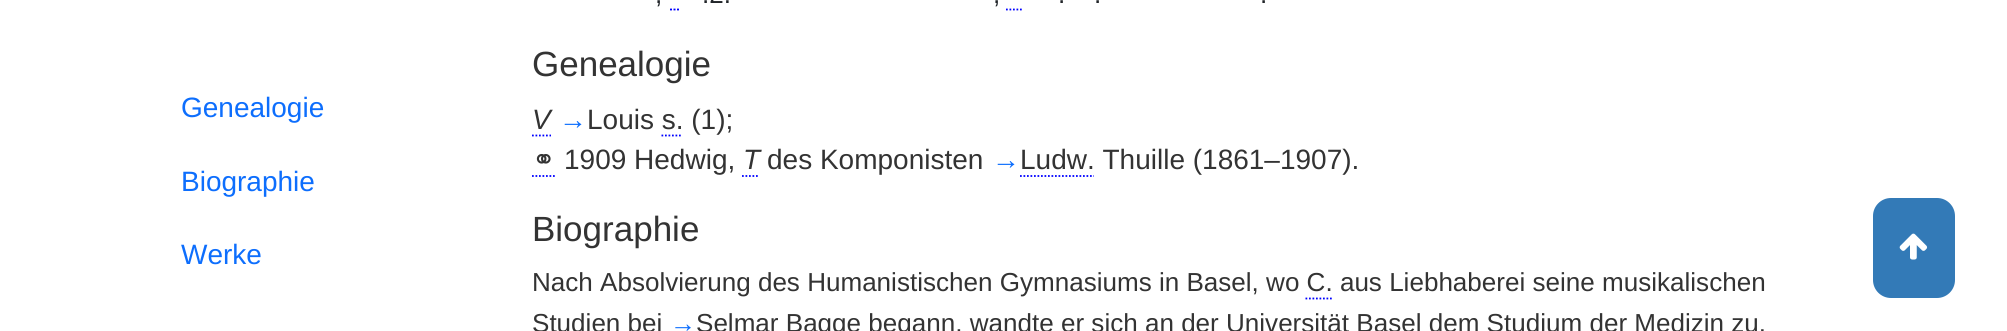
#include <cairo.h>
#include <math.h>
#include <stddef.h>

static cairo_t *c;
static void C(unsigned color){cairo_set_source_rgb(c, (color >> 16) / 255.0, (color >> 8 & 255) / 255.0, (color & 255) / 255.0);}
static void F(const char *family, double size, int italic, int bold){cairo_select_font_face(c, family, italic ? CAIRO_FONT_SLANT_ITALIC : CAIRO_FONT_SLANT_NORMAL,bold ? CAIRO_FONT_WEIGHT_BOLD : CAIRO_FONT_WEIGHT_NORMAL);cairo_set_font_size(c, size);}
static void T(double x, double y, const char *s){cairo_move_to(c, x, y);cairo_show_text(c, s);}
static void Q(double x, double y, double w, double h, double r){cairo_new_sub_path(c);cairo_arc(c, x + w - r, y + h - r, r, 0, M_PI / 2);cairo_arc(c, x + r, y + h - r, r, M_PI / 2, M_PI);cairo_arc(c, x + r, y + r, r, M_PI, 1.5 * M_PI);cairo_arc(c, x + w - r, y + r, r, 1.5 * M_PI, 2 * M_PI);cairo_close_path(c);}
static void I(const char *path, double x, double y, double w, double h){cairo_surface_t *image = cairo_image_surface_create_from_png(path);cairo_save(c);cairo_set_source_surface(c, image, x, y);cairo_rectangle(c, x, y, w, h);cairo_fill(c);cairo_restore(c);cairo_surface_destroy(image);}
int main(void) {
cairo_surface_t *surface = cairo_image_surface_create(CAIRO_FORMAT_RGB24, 2007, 331);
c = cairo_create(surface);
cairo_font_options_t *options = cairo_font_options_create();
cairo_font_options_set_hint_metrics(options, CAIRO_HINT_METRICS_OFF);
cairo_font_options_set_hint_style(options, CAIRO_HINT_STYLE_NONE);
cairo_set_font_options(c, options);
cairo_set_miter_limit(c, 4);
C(0xffffff);
cairo_paint(c);
F("Liberation Sans",28,0,0);
C(0x0d6efd);
T(181,117,"Genealogie");
T(181,191,"Biographie");
T(181,264,"Werke");
F("Liberation Sans",26.05,0,0);
C(0x212529);
T(655,3,",");
T(702,3,".2.");
T(993,3,",");
T(1058,3,".");
T(1094,3,".");
T(1260,3,".");
cairo_new_path(c);
cairo_move_to(c,670,9.5);
cairo_line_to(c,672,9.5);
cairo_move_to(c,673.5,9.5);
cairo_line_to(c,675.5,9.5);
cairo_move_to(c,677,9.5);
cairo_line_to(c,679,9.5);
C(0x0000ff);
cairo_set_line_width(c,1.8);
cairo_stroke(c);
cairo_new_path(c);
cairo_move_to(c,1006,9.5);
cairo_line_to(c,1022,9.5);
cairo_set_dash(c,(double[]){1.75,1.75},2,0);
cairo_stroke(c);
F("Liberation Sans",35,0,0);
C(0x333333);
T(532,76,"Genealogie");
F("Liberation Sans",28,1,0);
T(532,129,"V");
cairo_new_path(c);
cairo_move_to(c,532,135.5);
cairo_line_to(c,551,135.5);
C(0x0000ff);
cairo_stroke(c);
F("Liberation Sans",28,0,0);
C(0x0d6efd);
T(559,129,"→");
C(0x333333);
T(587,129,"Louis s. (1);");
cairo_new_path(c);
cairo_move_to(c,661.5,135.5);
cairo_line_to(c,682.5,135.5);
C(0x0000ff);
cairo_stroke(c);
F("DejaVu Sans",28,0,0);
C(0x333333);
T(532,169,"⚭");
cairo_new_path(c);
cairo_move_to(c,532,176);
cairo_line_to(c,556.5,176);
C(0x0000ff);
cairo_stroke(c);
F("Liberation Sans",28,0,0);
C(0x333333);
T(564,169,"1909 Hedwig,");
F("Liberation Sans",28,1,0);
T(743,169,"T");
cairo_new_path(c);
cairo_move_to(c,742,176);
cairo_line_to(c,759.5,176);
C(0x0000ff);
cairo_stroke(c);
F("Liberation Sans",28,0,0);
C(0x333333);
T(767,169,"des Komponisten");
C(0x0d6efd);
T(992,169,"→");
C(0x333333);
T(1020,169,"Ludw. Thuille (1861–1907).");
cairo_new_path(c);
cairo_move_to(c,1020,176);
cairo_line_to(c,1094,176);
C(0x0000ff);
cairo_stroke(c);
F("Liberation Sans",35,0,0);
C(0x333333);
T(532,241,"Biographie");
F("Liberation Sans",26.05,0,0);
T(532,291,"Nach Absolvierung des Humanistischen Gymnasiums in Basel, wo C. aus Liebhaberei seine musikalischen");
cairo_new_path(c);
cairo_move_to(c,1305.5,298.5);
cairo_line_to(c,1332,298.5);
C(0x0000ff);
cairo_stroke(c);
C(0x333333);
T(532,332,"Studien bei");
C(0x0d6efd);
T(670,332,"→");
C(0x333333);
T(696,332,"Selmar Bagge begann, wandte er sich an der Universität Basel dem Studium der Medizin zu.");
C(0x337ab7);
Q(1873,198,82,100,18);
cairo_fill(c);
I("1.png",1899,233,29,27);
cairo_surface_write_to_png(surface, "o.png");
cairo_font_options_destroy(options);
cairo_destroy(c);
cairo_surface_destroy(surface);
return 0;
}
